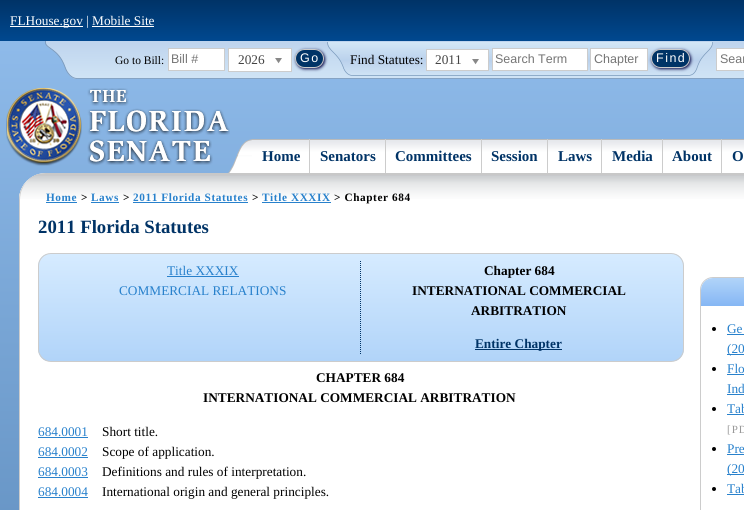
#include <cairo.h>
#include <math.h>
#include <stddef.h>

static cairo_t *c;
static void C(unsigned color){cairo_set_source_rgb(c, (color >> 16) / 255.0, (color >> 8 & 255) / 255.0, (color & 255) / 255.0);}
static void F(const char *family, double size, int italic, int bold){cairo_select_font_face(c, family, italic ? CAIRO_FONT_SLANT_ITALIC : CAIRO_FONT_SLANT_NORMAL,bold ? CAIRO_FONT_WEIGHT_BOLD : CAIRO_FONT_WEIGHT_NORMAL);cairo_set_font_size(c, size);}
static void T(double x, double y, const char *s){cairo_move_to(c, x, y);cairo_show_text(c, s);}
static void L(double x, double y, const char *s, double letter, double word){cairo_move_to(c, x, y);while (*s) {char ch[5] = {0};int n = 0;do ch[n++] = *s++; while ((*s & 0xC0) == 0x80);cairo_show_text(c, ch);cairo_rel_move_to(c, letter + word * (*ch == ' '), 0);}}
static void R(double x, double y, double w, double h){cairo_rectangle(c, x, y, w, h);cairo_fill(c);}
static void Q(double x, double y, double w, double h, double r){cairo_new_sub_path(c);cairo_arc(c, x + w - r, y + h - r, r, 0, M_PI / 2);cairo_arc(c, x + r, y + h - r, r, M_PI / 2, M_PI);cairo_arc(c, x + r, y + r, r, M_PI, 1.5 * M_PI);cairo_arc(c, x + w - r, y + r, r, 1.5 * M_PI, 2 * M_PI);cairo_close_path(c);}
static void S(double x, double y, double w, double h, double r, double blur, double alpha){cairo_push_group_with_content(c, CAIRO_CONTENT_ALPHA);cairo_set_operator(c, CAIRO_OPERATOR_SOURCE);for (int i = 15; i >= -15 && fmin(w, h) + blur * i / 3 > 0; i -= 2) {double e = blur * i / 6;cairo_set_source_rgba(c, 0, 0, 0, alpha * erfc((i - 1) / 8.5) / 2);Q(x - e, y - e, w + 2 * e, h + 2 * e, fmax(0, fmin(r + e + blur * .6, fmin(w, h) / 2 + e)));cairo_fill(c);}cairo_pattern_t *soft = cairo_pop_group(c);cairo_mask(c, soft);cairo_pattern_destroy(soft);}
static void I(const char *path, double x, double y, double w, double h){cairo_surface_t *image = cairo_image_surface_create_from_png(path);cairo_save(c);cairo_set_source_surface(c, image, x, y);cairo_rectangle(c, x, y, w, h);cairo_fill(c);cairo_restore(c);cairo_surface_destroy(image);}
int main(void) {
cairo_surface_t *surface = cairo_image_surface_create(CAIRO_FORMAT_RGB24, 744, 510);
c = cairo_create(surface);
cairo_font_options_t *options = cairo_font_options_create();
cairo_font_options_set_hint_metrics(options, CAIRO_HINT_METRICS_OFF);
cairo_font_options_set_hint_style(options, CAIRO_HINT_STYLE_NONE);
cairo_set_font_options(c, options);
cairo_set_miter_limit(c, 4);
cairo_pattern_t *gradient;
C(0xffffff);
cairo_paint(c);
gradient = cairo_pattern_create_linear(372,0,372,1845);
cairo_pattern_add_color_stop_rgba(gradient,.01,0.565,0.737,0.922,1);
cairo_pattern_add_color_stop_rgba(gradient,1,0,0.2,0.4,1);
cairo_set_source(c,gradient);
cairo_pattern_destroy(gradient);
R(0,41,744,469);
gradient = cairo_pattern_create_linear(480,0,480,41);
cairo_pattern_add_color_stop_rgba(gradient,0,0,0.2,0.4,1);
cairo_pattern_add_color_stop_rgba(gradient,1,0,0.282,0.561,1);
cairo_set_source(c,gradient);
cairo_pattern_destroy(gradient);
R(0,0,744,41);
C(0xffffff);
R(10,26,73,1);
F("Liberation Serif",13.3,0,0);
T(10,25,"FLHouse.gov | Mobile Site");
R(92,26,62,1);
cairo_save(c);
cairo_rectangle(c,43,41,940,45);
cairo_clip(c);
gradient = cairo_pattern_create_linear(514,-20,514,79);
cairo_pattern_add_color_stop_rgba(gradient,0,0.827,0.906,0.965,1);
cairo_pattern_add_color_stop_rgba(gradient,.55,0.729,0.82,0.925,1);
cairo_pattern_add_color_stop_rgba(gradient,.59,0.741,0.827,0.929,1);
cairo_pattern_add_color_stop_rgba(gradient,1,0.816,0.894,0.961,1);
cairo_set_source(c,gradient);
cairo_pattern_destroy(gradient);
cairo_new_path(c);
cairo_move_to(c,46,-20);
cairo_line_to(c,46,43);
cairo_curve_to(c,45,49,58,48,65,67);
cairo_curve_to(c,67,73,71,79,77,79);
cairo_line_to(c,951,79);
cairo_curve_to(c,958,79,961,73,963,67);
cairo_curve_to(c,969,48,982,48,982,43);
cairo_line_to(c,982,-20);
cairo_fill(c);
cairo_new_path(c);
cairo_move_to(c,45.5,-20);
cairo_line_to(c,45.5,42.5);
cairo_curve_to(c,45.5,48.5,58.5,48.5,65,67);
cairo_curve_to(c,67,73,71.5,78.5,77,78.5);
cairo_line_to(c,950.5,78.5);
cairo_curve_to(c,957.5,78.5,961,73,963,67);
cairo_curve_to(c,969.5,48.5,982,48.5,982,42.5);
cairo_line_to(c,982,-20);
C(0x7a99bb);
cairo_set_line_width(c,.9);
cairo_stroke(c);
cairo_restore(c);
F("Liberation Serif",11.5,0,0);
C(0x000000);
T(115,64,"Go to Bill:");
C(0xffffff);
cairo_rectangle(c,168.5,48.5,56,22);
cairo_fill_preserve(c);
C(0xcccccc);
cairo_set_line_width(c,1);
cairo_stroke(c);
F("Liberation Sans",12.5,0,0);
C(0x757575);
T(171,63,"Bill #");
gradient = cairo_pattern_create_linear(520,42,520,76);
cairo_pattern_add_color_stop_rgba(gradient,0,0.827,0.906,0.965,1);
cairo_pattern_add_color_stop_rgba(gradient,.55,0.729,0.82,0.925,1);
cairo_pattern_add_color_stop_rgba(gradient,.59,0.741,0.827,0.929,1);
cairo_pattern_add_color_stop_rgba(gradient,1,0.816,0.894,0.961,1);
cairo_set_source(c,gradient);
cairo_pattern_destroy(gradient);
cairo_new_path(c);
cairo_move_to(c,713,42);
cairo_curve_to(c,713,50,703,52,697,67);
cairo_curve_to(c,696,71,693,76,688,76);
cairo_line_to(c,352,76);
cairo_curve_to(c,348,76,344,71,343,67);
cairo_curve_to(c,338,52,328,51,328,42);
cairo_fill(c);
cairo_new_path(c);
cairo_move_to(c,712.5,42);
cairo_curve_to(c,713,50.5,702.5,52,697.5,66.5);
cairo_curve_to(c,696,71.5,693.5,75.5,688,75.5);
cairo_line_to(c,352.5,75.5);
cairo_curve_to(c,348,75.5,344.5,71.5,343,66.5);
cairo_curve_to(c,337.5,52,327.5,51,327.5,42);
C(0x7a99bb);
cairo_set_line_width(c,.7);
cairo_stroke(c);
C(0x040443);
S(296,50,29,19,9.5,1.5,1);
C(0xffffff);
cairo_rectangle(c,228.5,48.5,63,23);
cairo_fill_preserve(c);
C(0xcccccc);
cairo_set_line_width(c,1);
cairo_stroke(c);
F("Liberation Serif",13.3,0,0);
C(0x444444);
T(238,64,"2026");
I("1.png",275,58,7,6);
C(0x003366);
Q(295.5,49.5,28,18,9);
cairo_fill_preserve(c);
C(0xcccccc);
cairo_stroke(c);
F("Liberation Sans",12.5,0,0);
C(0xffffff);
L(300,62,"Go",1.5,0);
F("Liberation Serif",13.3,0,0);
C(0x000000);
T(350,64,"Find Statutes:");
C(0xffffff);
cairo_rectangle(c,426.5,49.5,62,21);
cairo_fill_preserve(c);
C(0xcccccc);
cairo_stroke(c);
C(0x444444);
T(435,64,"2011");
I("1.png",472,59,7,6);
C(0xffffff);
cairo_rectangle(c,492.5,48.5,95,22);
cairo_fill_preserve(c);
C(0xcccccc);
cairo_stroke(c);
F("Liberation Sans",12.5,0,0);
C(0x757575);
T(495,63,"Search Term");
C(0xffffff);
cairo_rectangle(c,590.5,48.5,57,22);
cairo_fill_preserve(c);
C(0xcccccc);
cairo_stroke(c);
C(0x757575);
T(594,63,"Chapter");
C(0x040443);
S(652,50,39,19,9.5,1.5,1);
C(0x003366);
Q(651.5,49.5,38,18,9);
cairo_fill_preserve(c);
C(0xcccccc);
cairo_stroke(c);
C(0xffffff);
L(656,62,"Find",1.5,0);
cairo_rectangle(c,716.5,48.5,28,22);
cairo_fill_preserve(c);
C(0xcccccc);
cairo_stroke(c);
C(0x757575);
T(720,63,"Sear");
I("2.png",6,88,224,78);
I("3.png",228,139,24,34);
I("4.png",252,139,57,34);
C(0xcccccc);
R(309,139,1,34);
F("Liberation Serif",15,0,1);
C(0x003366);
T(262,161,"Home");
I("5.png",310,139,75,34);
C(0xcccccc);
R(385,139,1,34);
C(0x003366);
T(320,161,"Senators");
I("6.png",386,139,95,34);
C(0xcccccc);
R(481,139,1,34);
C(0x003366);
T(395,161,"Committees");
I("7.png",482,139,65,34);
C(0xcccccc);
R(547,139,1,34);
C(0x003366);
T(491,161,"Session");
I("8.png",548,139,53,34);
C(0xcccccc);
R(601,139,1,34);
C(0x003366);
T(558,161,"Laws");
I("9.png",602,139,60,34);
C(0xcccccc);
R(662,139,1,34);
C(0x003366);
T(612,161,"Media");
I("10.png",663,139,58,34);
C(0xcccccc);
R(721,139,1,34);
C(0x003366);
T(672,161,"About");
I("11.png",722,139,22,34);
T(732,161,"O");
C(0xffffff);
cairo_new_path(c);
cairo_move_to(c,46,173);
cairo_line_to(c,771,173);
cairo_line_to(c,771,510);
cairo_curve_to(c,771,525,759,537,744,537);
cairo_line_to(c,46,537);
cairo_curve_to(c,31,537,19,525,19,510);
cairo_line_to(c,19,200);
cairo_curve_to(c,19,185,31,173,46,173);
cairo_close_path(c);
cairo_fill(c);
I("12.png",19,174,725,25);
C(0xc8c8c8);
cairo_new_path(c);
cairo_move_to(c,46,173);
cairo_curve_to(c,38,173,32,176,27,181);
cairo_curve_to(c,32,177,38,174,46,174);
cairo_line_to(c,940,174);
cairo_line_to(c,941,173);
cairo_close_path(c);
cairo_fill(c);
C(0xcccccc);
cairo_new_path(c);
cairo_move_to(c,19,200);
cairo_line_to(c,19,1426);
cairo_curve_to(c,19,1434,22,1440,27,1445);
cairo_curve_to(c,23,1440,20,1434,20,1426);
cairo_line_to(c,20,200);
cairo_curve_to(c,20,192,23,186,27,181);
cairo_curve_to(c,22,186,19,192,19,200);
cairo_close_path(c);
cairo_fill(c);
F("Liberation Serif",11.25,0,1);
C(0x2881cc);
L(46,201,"Home",.6,0);
R(46,202,31,1);
C(0x000000);
L(81,201,">",.6,0);
C(0x2881cc);
L(91,201,"Laws",.6,0);
R(91,202,28,1);
C(0x000000);
L(123,201,">",.6,0);
C(0x2881cc);
L(133,201,"2011 Florida Statutes",.6,0);
R(133,202,115,1);
C(0x000000);
L(252,201,">",.6,0);
C(0x2881cc);
L(262,201,"Title XXXIX",.6,0);
R(262,202,69,1);
C(0x000000);
L(334,201,"> Chapter 684",.6,0);
F("Liberation Serif",18.75,0,1);
C(0x003366);
T(38,233,"2011 Florida Statutes");
cairo_save(c);
Q(38,253,646,109,13);
cairo_clip(c);
gradient = cairo_pattern_create_linear(361,254,361,361);
cairo_pattern_add_color_stop_rgba(gradient,0,0.839,0.922,1,1);
cairo_pattern_add_color_stop_rgba(gradient,1,0.694,0.831,0.976,1);
cairo_set_source(c,gradient);
cairo_pattern_destroy(gradient);
R(38,254,646,107);
cairo_restore(c);
Q(38.5,253.5,645,108,12.5);
C(0xcccccc);
cairo_stroke(c);
cairo_new_path(c);
cairo_move_to(c,360.5,261);
cairo_line_to(c,360.5,354);
C(0x003366);
cairo_set_dash(c,(double[]){1,1},2,0);
cairo_stroke(c);
F("Liberation Serif",13.3,0,0);
C(0x2881cc);
T(167,275,"Title XXXIX");
R(167,276,72,1);
T(119,295,"COMMERCIAL RELATIONS");
F("Liberation Serif",13.3,0,1);
C(0x000000);
T(484,275,"Chapter 684");
T(412,295,"INTERNATIONAL COMMERCIAL");
T(471,315,"ARBITRATION");
C(0x003366);
R(475,349,87,1);
T(475,348,"Entire Chapter");
C(0x000000);
T(316,382,"CHAPTER 684");
T(203,402,"INTERNATIONAL COMMERCIAL ARBITRATION");
F("Liberation Serif",13.3,0,0);
C(0x2881cc);
T(38,436,"684.0001");
R(38,437,50,1);
C(0x000000);
T(102,436,"Short title.");
C(0x2881cc);
T(38,456,"684.0002");
R(38,457,50,1);
C(0x000000);
T(102,456,"Scope of application.");
C(0x2881cc);
T(38,476,"684.0003");
R(38,477,50,1);
C(0x000000);
T(102,476,"Definitions and rules of interpretation.");
C(0x2881cc);
T(38,496,"684.0004");
R(38,497,50,1);
C(0x000000);
T(102,496,"International origin and general principles.");
Q(700.5,277.5,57,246,12.5);
C(0xcccccc);
cairo_set_dash(c,NULL,0,0);
cairo_stroke(c);
gradient = cairo_pattern_create_linear(701,278,701,306);
cairo_pattern_add_color_stop_rgba(gradient,0,0.694,0.831,0.976,1);
cairo_pattern_add_color_stop_rgba(gradient,1,0.522,0.714,0.957,1);
cairo_set_source(c,gradient);
cairo_pattern_destroy(gradient);
cairo_new_path(c);
cairo_move_to(c,713,278);
cairo_line_to(c,744,278);
cairo_curve_to(c,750.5,278,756,283.5,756,290);
cairo_line_to(c,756,306);
cairo_line_to(c,701,306);
cairo_line_to(c,701,290);
cairo_curve_to(c,701,283.5,706.5,278,713,278);
cairo_close_path(c);
cairo_fill(c);
C(0x000000);
cairo_arc(c,714,329,2,0,2 * M_PI);
cairo_fill(c);
C(0x2881cc);
T(727,333,"Ge");
R(727,334,17,1);
R(727,354,17,1);
T(727,353,"(20");
C(0x000000);
cairo_new_path(c);
cairo_arc(c,714,369,2,0,2 * M_PI);
cairo_fill(c);
C(0x2881cc);
T(727,373,"Flo");
R(727,374,17,1);
T(727,393,"Ind");
R(727,394,17,1);
C(0x000000);
cairo_new_path(c);
cairo_arc(c,714,409,2,0,2 * M_PI);
cairo_fill(c);
C(0x2881cc);
T(727,413,"Tab");
R(727,414,17,1);
F("Liberation Serif",11,0,0);
C(0x999999);
L(727,433,"[PD",1,0);
C(0x000000);
cairo_new_path(c);
cairo_arc(c,714,449,2,0,2 * M_PI);
cairo_fill(c);
F("Liberation Serif",13.3,0,0);
C(0x2881cc);
T(727,453,"Pre");
R(727,454,17,1);
R(727,474,17,1);
T(727,473,"(20");
C(0x000000);
cairo_new_path(c);
cairo_arc(c,714,489,2,0,2 * M_PI);
cairo_fill(c);
C(0x2881cc);
T(727,493,"Tab");
R(727,494,17,1);
cairo_surface_write_to_png(surface, "o.png");
cairo_font_options_destroy(options);
cairo_destroy(c);
cairo_surface_destroy(surface);
return 0;
}
